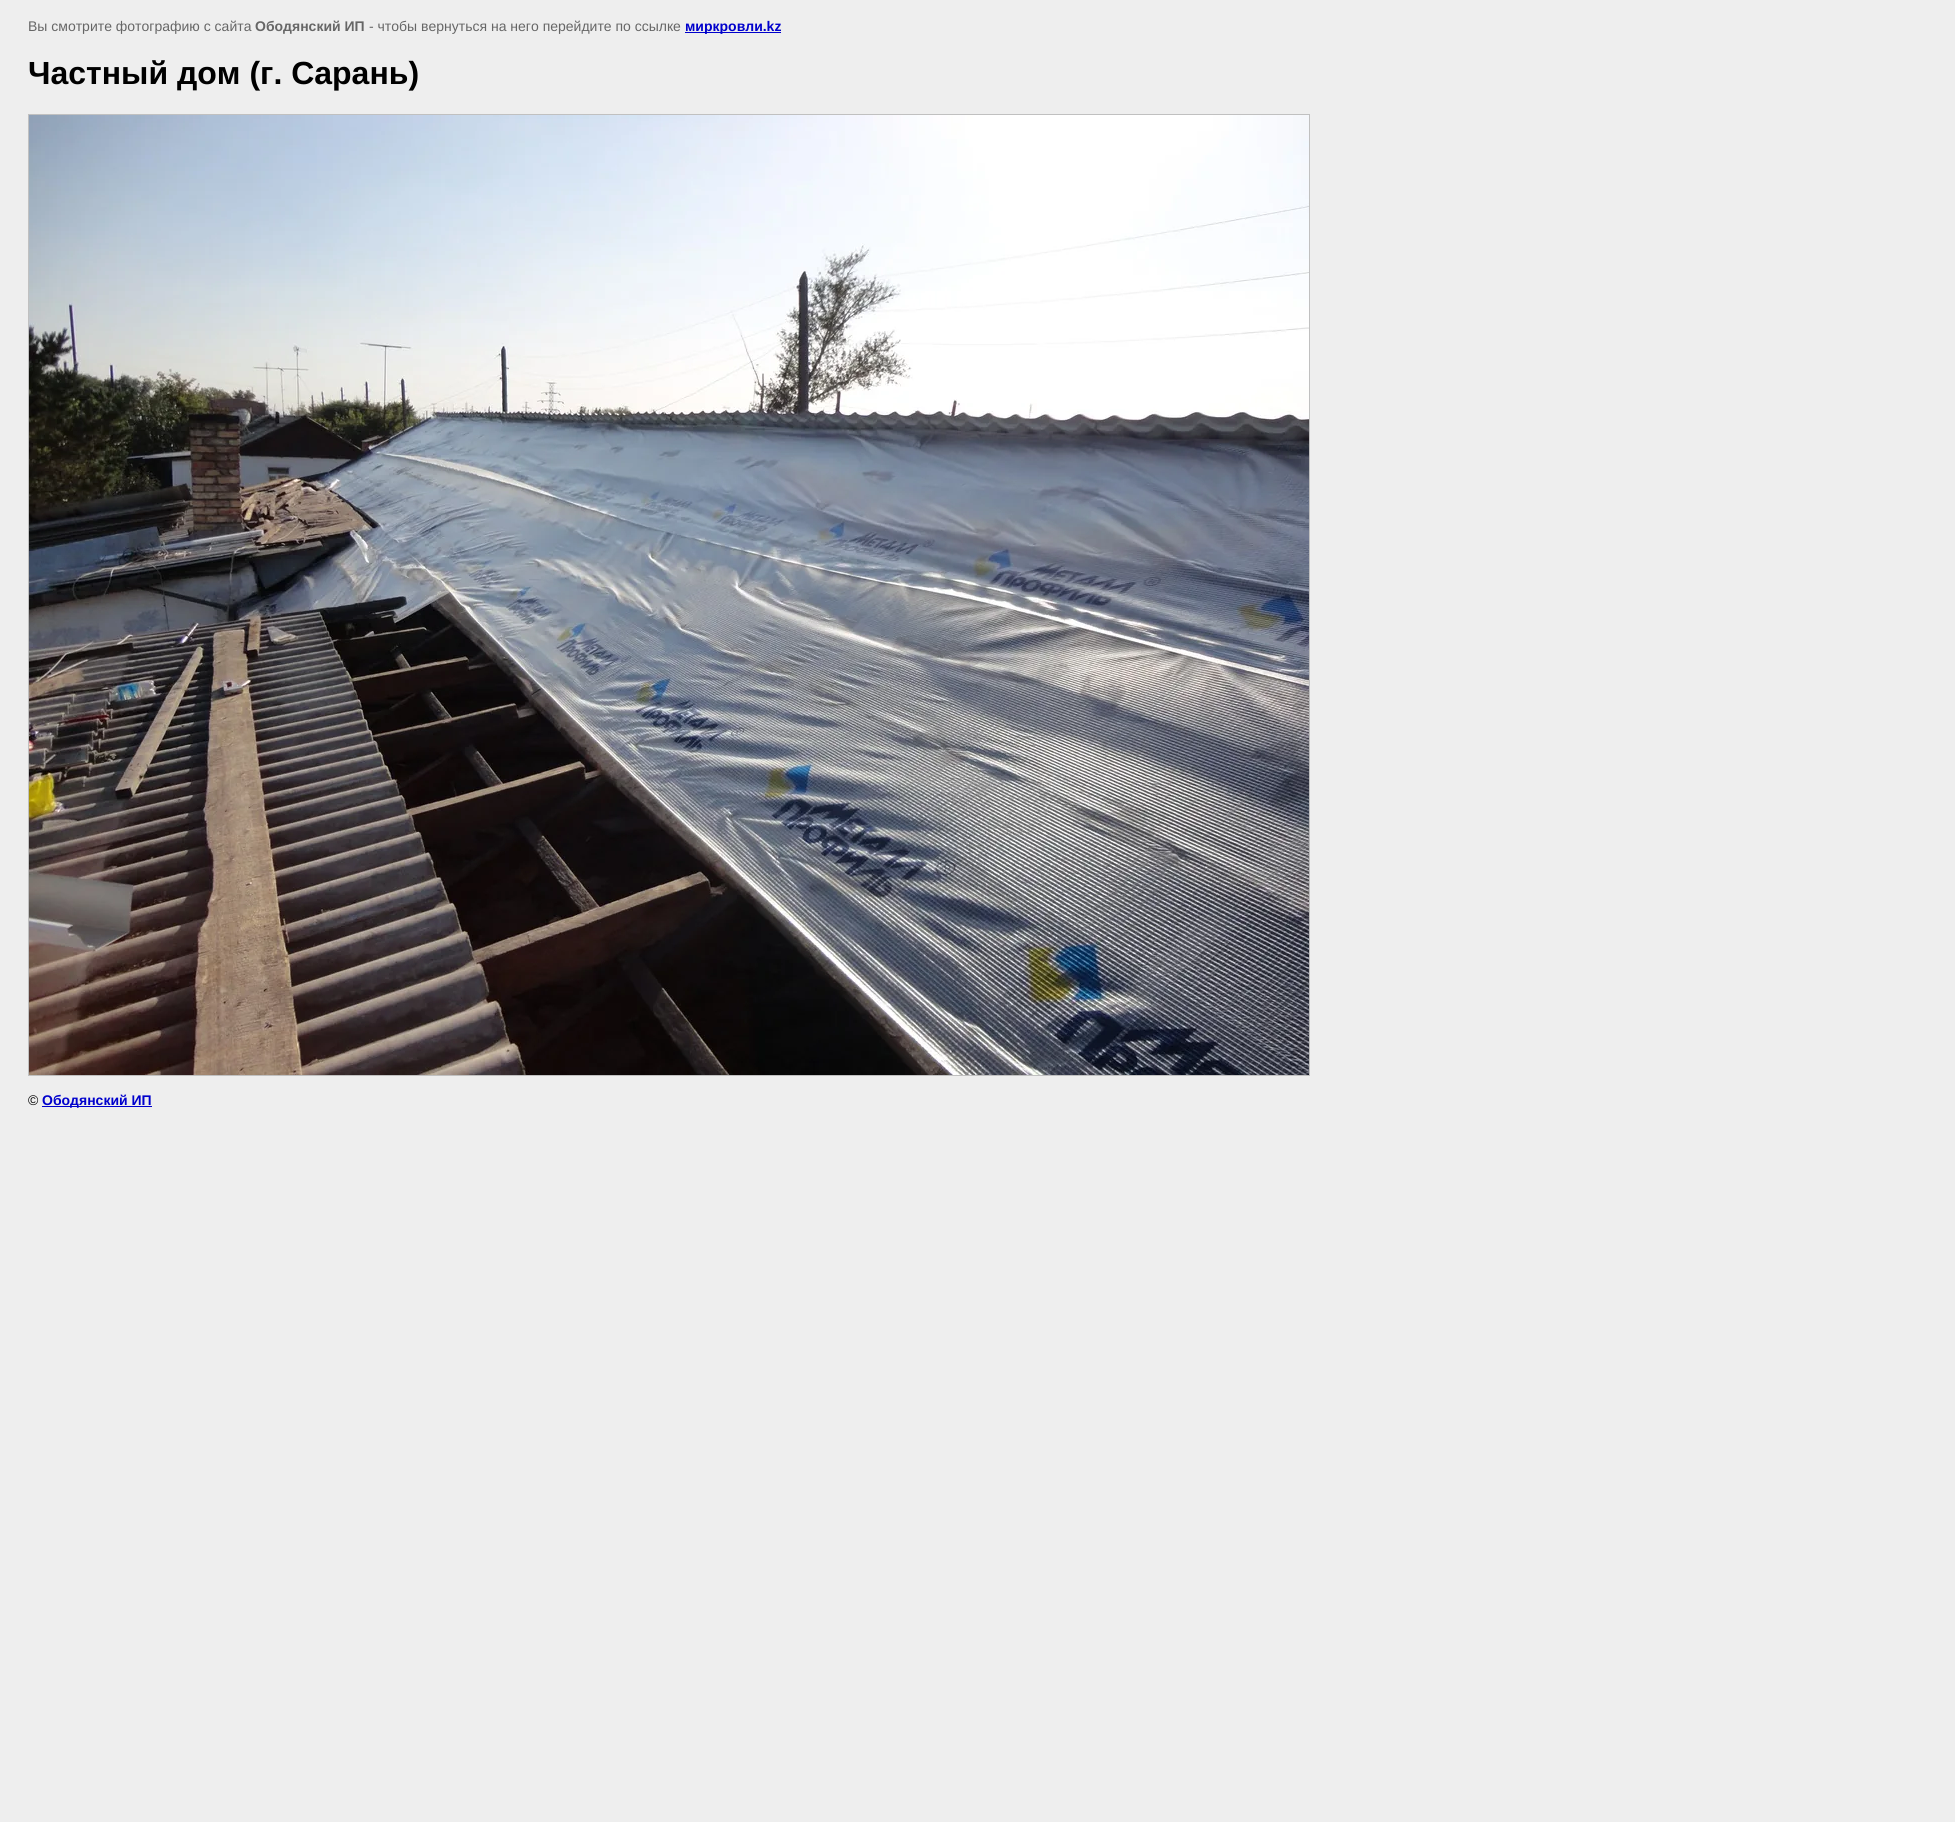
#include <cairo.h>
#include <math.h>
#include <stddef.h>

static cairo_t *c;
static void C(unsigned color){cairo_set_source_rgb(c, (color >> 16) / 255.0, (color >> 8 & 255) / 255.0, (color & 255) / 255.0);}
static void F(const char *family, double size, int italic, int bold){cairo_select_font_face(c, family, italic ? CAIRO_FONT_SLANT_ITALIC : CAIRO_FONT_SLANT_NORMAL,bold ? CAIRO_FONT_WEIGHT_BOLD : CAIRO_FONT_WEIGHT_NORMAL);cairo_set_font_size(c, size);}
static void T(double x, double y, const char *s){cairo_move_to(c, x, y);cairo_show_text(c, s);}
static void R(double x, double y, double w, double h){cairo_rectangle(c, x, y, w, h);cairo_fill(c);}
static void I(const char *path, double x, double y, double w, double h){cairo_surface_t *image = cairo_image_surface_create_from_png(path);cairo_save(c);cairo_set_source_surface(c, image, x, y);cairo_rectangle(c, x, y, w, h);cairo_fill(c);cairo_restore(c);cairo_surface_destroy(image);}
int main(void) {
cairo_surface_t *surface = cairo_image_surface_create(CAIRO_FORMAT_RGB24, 1955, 1822);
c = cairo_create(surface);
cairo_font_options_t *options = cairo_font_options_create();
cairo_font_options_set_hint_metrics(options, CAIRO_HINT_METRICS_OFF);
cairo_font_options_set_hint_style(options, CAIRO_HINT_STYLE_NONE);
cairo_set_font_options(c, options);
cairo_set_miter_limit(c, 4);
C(0xeeeeee);
cairo_paint(c);
F("Liberation Sans",14,0,0);
C(0x666666);
T(28,31,"Вы смотрите фотографию с сайта");
F("Liberation Sans",14,0,1);
T(255,31,"Ободянский ИП");
F("Liberation Sans",14,0,0);
T(369,31,"- чтобы вернуться на него перейдите по ссылке");
C(0x0000cc);
R(685,32,96,1);
F("Liberation Sans",14,0,1);
T(685,31,"миркровли.kz");
F("Liberation Sans",32,0,1);
C(0x000000);
T(28,84,"Частный дом (г. Сарань)");
cairo_rectangle(c,28.5,114.5,1281,961);
C(0xc0c0c0);
cairo_set_line_width(c,1);
cairo_stroke(c);
I("1.png",29,115,1280,960);
F("Liberation Sans",14,0,0);
C(0x000000);
T(28,1105,"©");
C(0x0000cc);
R(42,1106,110,1);
F("Liberation Sans",14,0,1);
T(42,1105,"Ободянский ИП");
cairo_surface_write_to_png(surface, "o.png");
cairo_font_options_destroy(options);
cairo_destroy(c);
cairo_surface_destroy(surface);
return 0;
}
